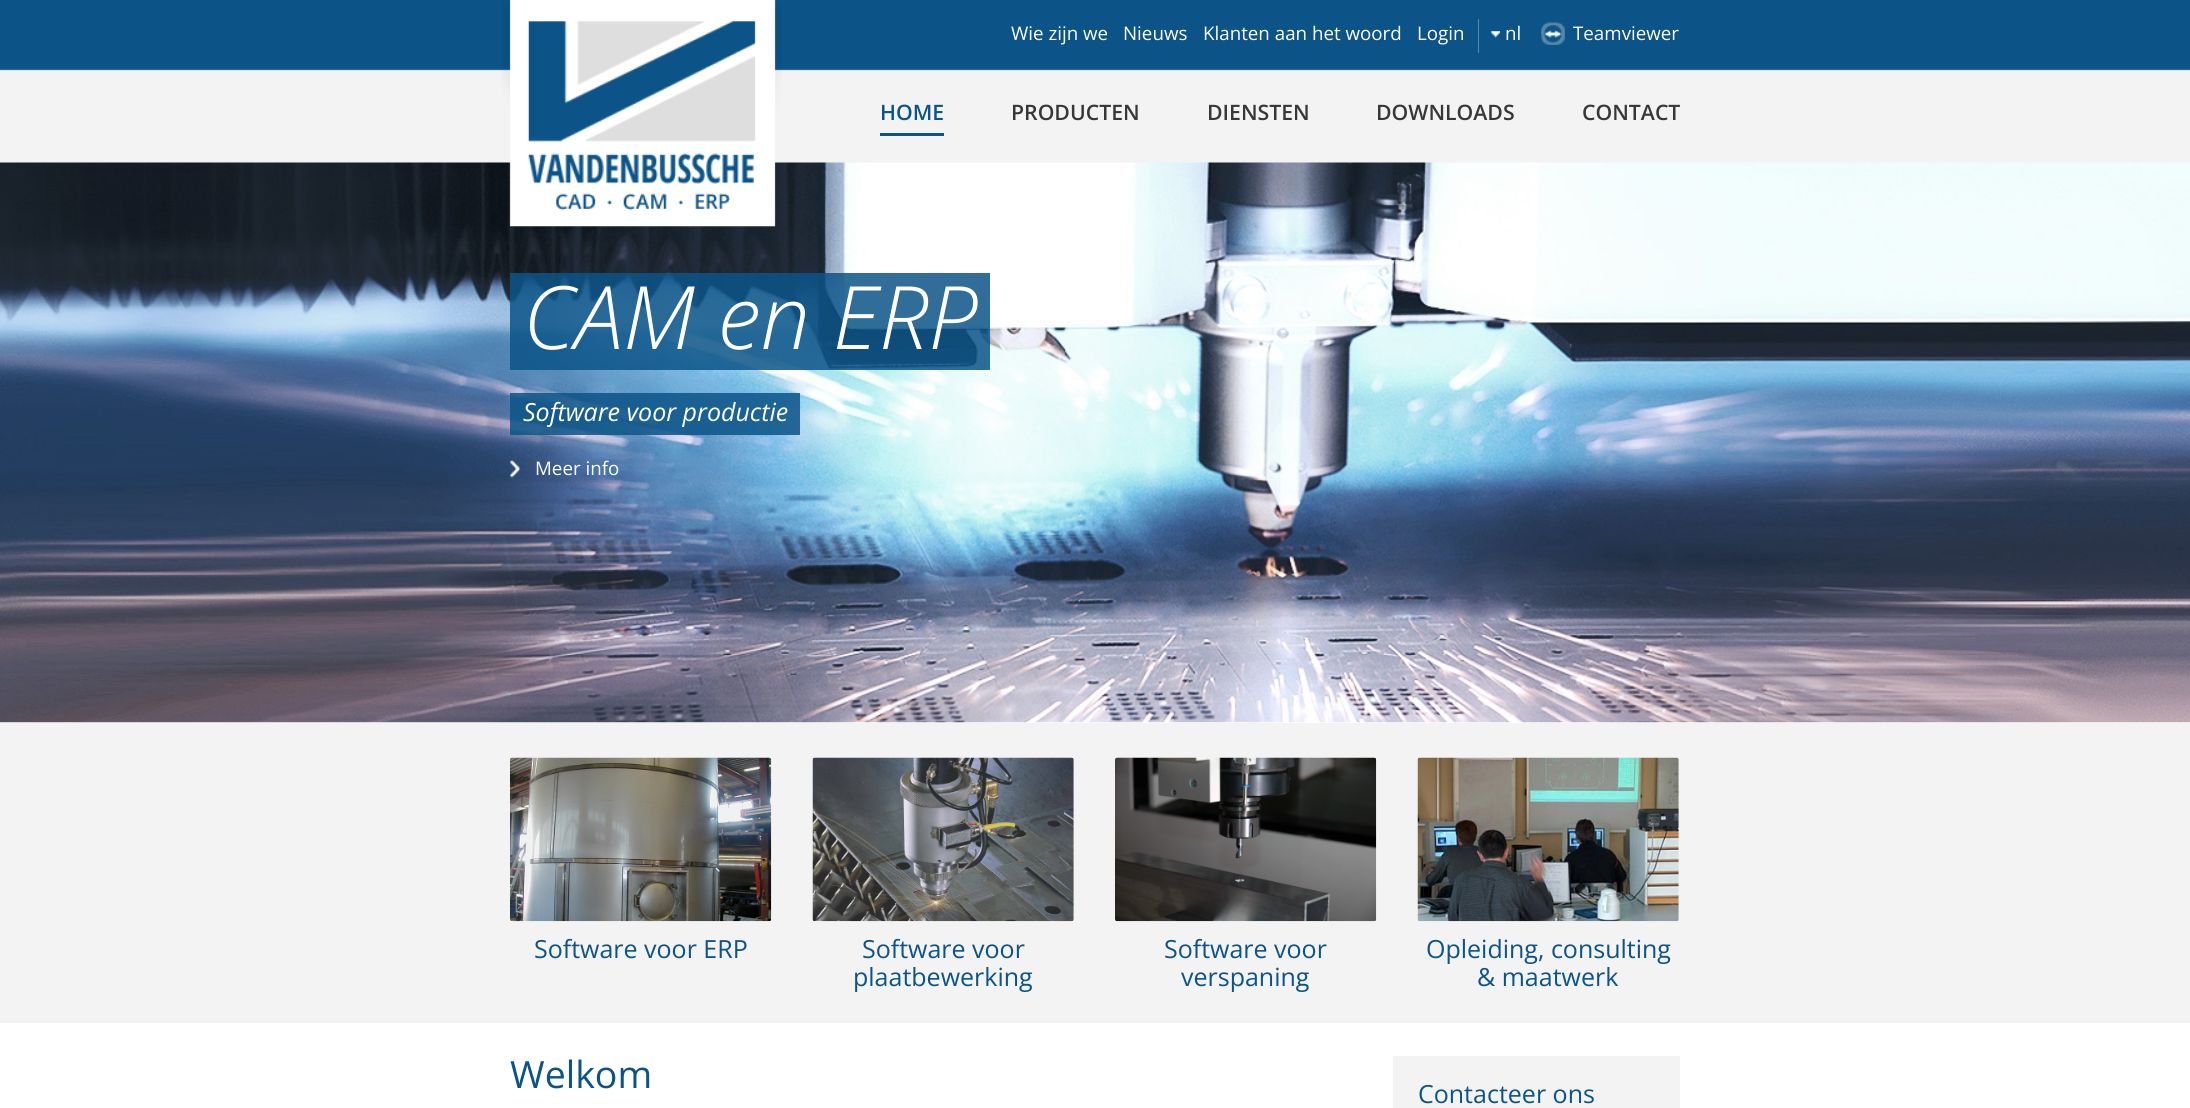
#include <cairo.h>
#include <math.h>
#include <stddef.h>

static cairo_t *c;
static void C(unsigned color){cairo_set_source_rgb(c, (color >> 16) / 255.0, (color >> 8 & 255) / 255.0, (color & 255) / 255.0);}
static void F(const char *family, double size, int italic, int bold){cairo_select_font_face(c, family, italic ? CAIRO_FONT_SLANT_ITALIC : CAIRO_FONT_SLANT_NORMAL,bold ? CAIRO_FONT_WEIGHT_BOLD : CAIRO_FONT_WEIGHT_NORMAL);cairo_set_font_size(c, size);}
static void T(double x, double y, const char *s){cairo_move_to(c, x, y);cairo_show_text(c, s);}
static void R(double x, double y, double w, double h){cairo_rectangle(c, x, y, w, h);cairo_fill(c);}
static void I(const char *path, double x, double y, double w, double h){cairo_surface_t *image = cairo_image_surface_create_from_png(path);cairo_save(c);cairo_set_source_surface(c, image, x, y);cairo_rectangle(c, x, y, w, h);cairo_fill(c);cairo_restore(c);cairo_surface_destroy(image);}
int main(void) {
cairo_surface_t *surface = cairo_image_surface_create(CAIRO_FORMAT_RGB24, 2190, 1108);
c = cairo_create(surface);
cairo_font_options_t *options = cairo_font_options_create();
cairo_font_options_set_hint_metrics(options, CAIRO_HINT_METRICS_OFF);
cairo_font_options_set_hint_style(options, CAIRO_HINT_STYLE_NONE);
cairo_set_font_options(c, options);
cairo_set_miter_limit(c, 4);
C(0xffffff);
cairo_paint(c);
I("5.png",0,162,2190,561);
I("1.png",0,0,2190,163);
I("2.png",501,0,281,227);
F("Open Sans",18.75,0,0);
C(0xffffff);
T(1011,40,"Wie zijn we");
T(1123,40,"Nieuws");
T(1203,40,"Klanten aan het woord");
T(1417,40,"Login");
I("3.png",1491,31,9,7);
C(0x5789ad);
R(1478,19,1,34);
C(0xffffff);
T(1505,40,"nl");
I("4.png",1541,22,24,23);
T(1573,40,"Teamviewer");
C(0x0c5488);
R(880,133,64,3);
F("Open Sans SemiBold",21.25,0,0);
T(880,120,"HOME");
C(0x373737);
T(1011,120,"PRODUCTEN");
T(1207,120,"DIENSTEN");
T(1376,120,"DOWNLOADS");
T(1582,120,"CONTACT");
cairo_set_source_rgba(c,0.047,0.329,0.533,0.85);
R(510,273,480,97);
F("Open Sans Light",87.5,1,0);
C(0xffffff);
T(523,349,"CAM en ERP");
cairo_set_source_rgba(c,0.047,0.329,0.533,0.85);
R(510,393,290,42);
F("Open Sans",25,1,0);
C(0xffffff);
T(523,421,"Software voor productie");
I("6.png",510,460,10,18);
F("Open Sans",18.75,0,0);
T(535,475,"Meer info");
C(0xf3f3f3);
R(0,723,2190,300);
I("7.png",510,757,262,165);
F("Open Sans",25,0,0);
C(0x0c5488);
T(534,958,"Software voor ERP");
I("8.png",812,757,262,165);
T(862,958,"Software voor");
T(853,986,"plaatbewerking");
I("9.png",1115,757,262,165);
T(1164,958,"Software voor");
T(1181,986,"verspaning");
I("10.png",1417,757,262,165);
T(1426,958,"Opleiding, consulting");
T(1477,986,"& maatwerk");
F("Open Sans",37.5,0,0);
T(510,1088,"Welkom");
C(0xf3f3f3);
R(1393,1056,287,52);
F("Open Sans",25,0,0);
C(0x0c5488);
T(1418,1103,"Contacteer ons");
cairo_surface_write_to_png(surface, "o.png");
cairo_font_options_destroy(options);
cairo_destroy(c);
cairo_surface_destroy(surface);
return 0;
}
